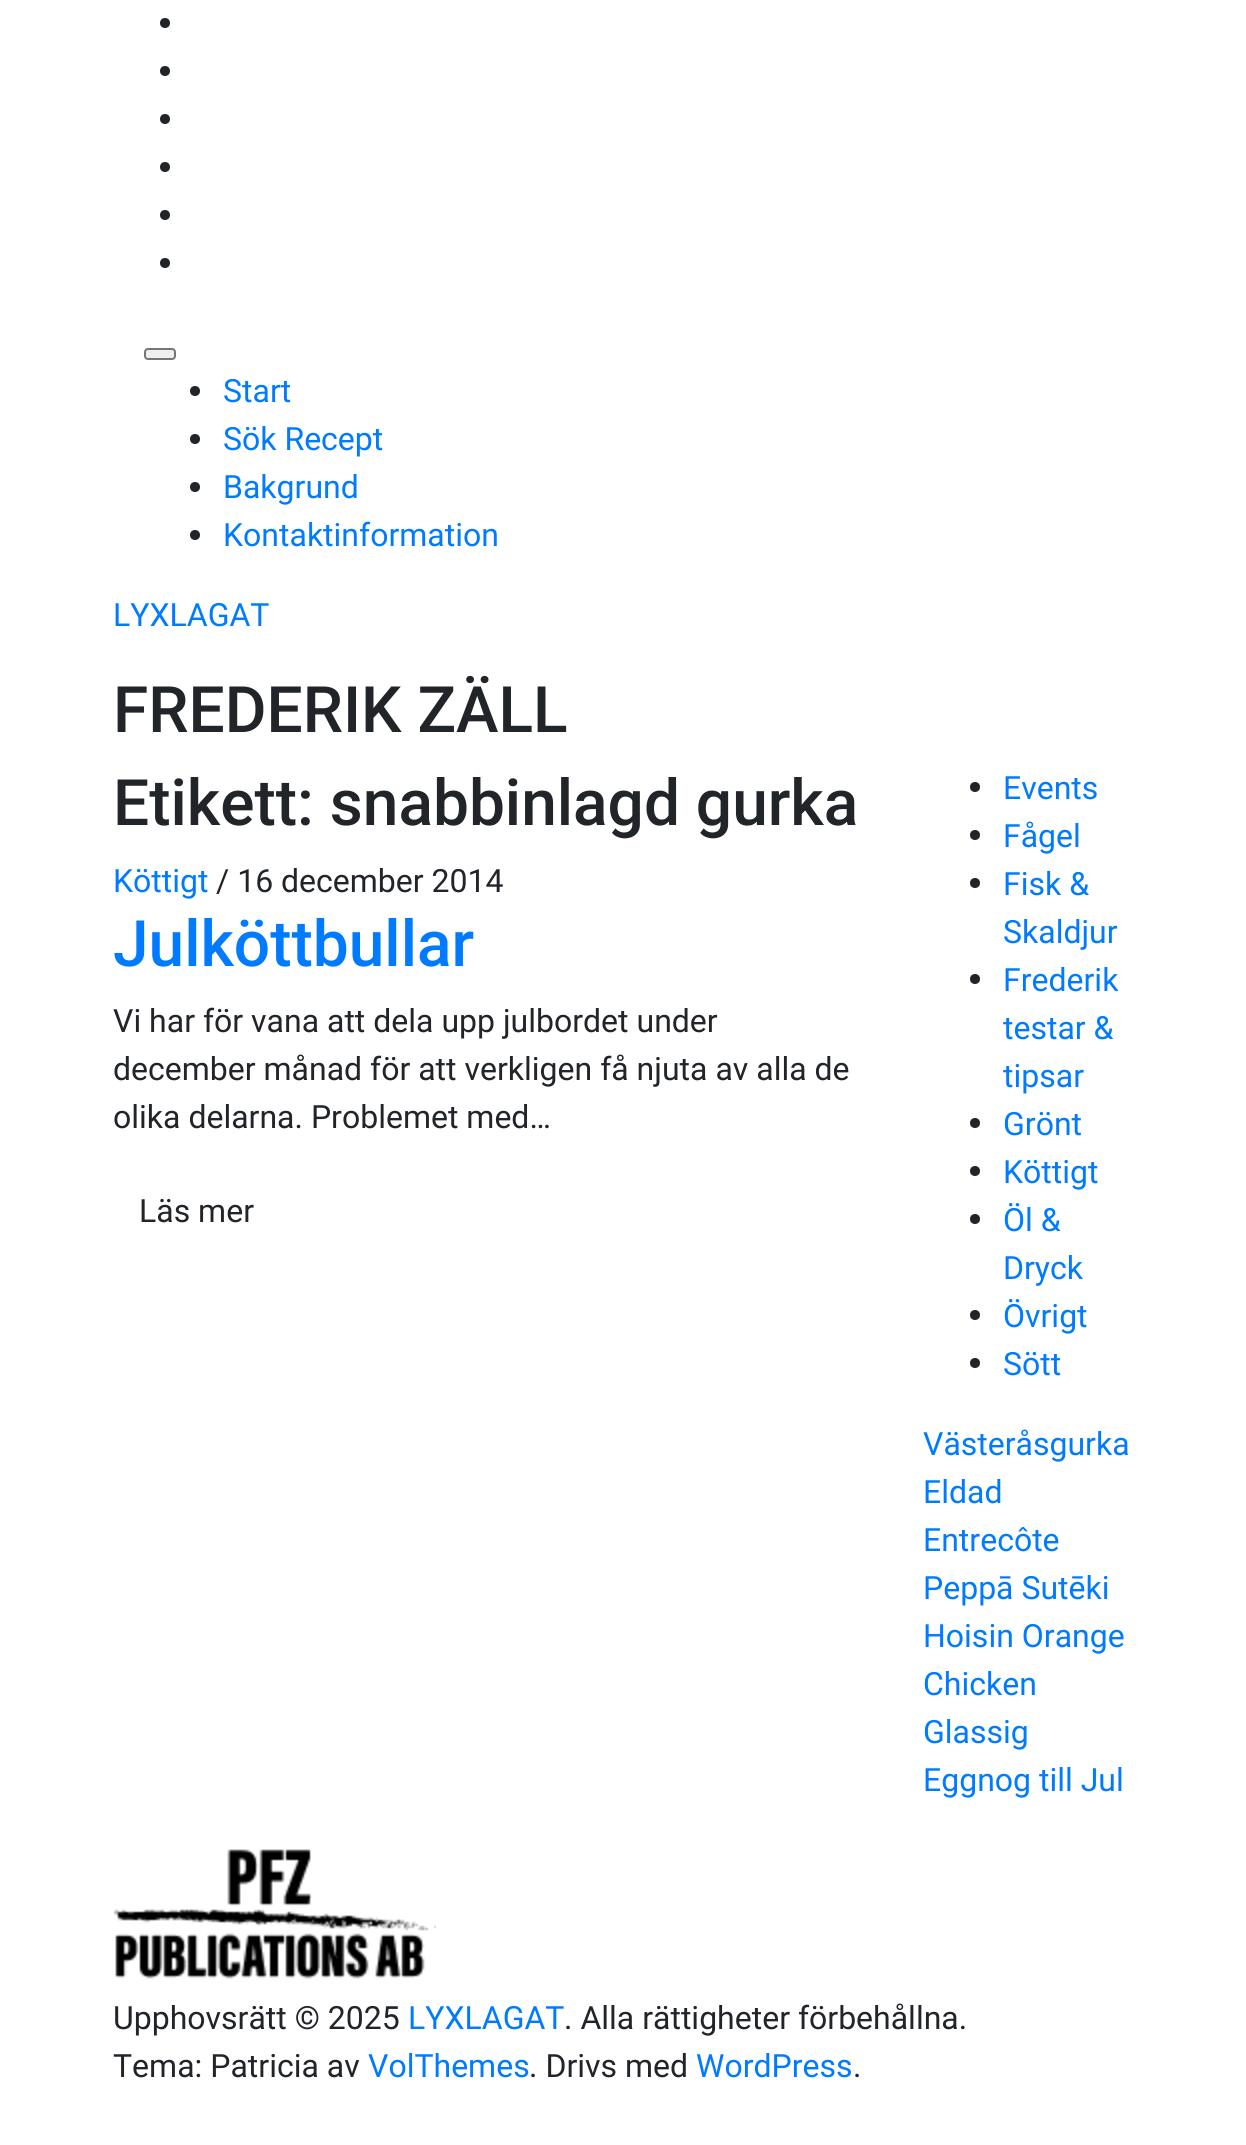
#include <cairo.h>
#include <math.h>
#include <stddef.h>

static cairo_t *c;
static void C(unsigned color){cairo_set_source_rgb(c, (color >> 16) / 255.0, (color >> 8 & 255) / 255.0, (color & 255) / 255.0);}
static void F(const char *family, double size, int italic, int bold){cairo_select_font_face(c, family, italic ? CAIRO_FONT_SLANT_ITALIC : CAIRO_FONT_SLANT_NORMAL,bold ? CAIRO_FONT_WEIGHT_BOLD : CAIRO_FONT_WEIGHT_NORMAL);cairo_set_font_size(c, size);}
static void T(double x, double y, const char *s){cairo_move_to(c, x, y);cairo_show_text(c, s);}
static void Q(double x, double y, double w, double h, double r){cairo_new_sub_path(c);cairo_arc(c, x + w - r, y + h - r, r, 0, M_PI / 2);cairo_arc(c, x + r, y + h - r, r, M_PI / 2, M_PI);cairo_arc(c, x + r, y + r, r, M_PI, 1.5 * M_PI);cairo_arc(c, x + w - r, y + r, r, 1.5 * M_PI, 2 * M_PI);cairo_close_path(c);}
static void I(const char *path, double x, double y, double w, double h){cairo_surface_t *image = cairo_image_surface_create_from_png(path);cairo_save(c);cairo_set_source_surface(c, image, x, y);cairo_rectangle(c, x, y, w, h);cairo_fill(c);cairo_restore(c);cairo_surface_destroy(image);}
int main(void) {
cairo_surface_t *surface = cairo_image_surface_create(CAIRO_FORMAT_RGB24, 1246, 2145);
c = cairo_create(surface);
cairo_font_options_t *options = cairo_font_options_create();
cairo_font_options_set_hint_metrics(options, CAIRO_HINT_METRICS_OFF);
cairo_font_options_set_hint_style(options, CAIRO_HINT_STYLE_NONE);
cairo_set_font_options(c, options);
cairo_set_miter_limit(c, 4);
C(0xffffff);
cairo_paint(c);
C(0x212529);
cairo_arc(c,165,23,5,0,2 * M_PI);
cairo_fill(c);
cairo_arc(c,165,71,5,0,2 * M_PI);
cairo_fill(c);
cairo_arc(c,165,119,5,0,2 * M_PI);
cairo_fill(c);
cairo_arc(c,165,167,5,0,2 * M_PI);
cairo_fill(c);
cairo_arc(c,165,215,5,0,2 * M_PI);
cairo_fill(c);
cairo_arc(c,165,263,5,0,2 * M_PI);
cairo_fill(c);
C(0xefefef);
Q(145,349,30,10,3);
cairo_fill_preserve(c);
C(0x767676);
cairo_stroke(c);
C(0x212529);
cairo_arc(c,195,391,5,0,2 * M_PI);
cairo_fill(c);
F("Roboto",32,0,0);
C(0x007bff);
T(223,402,"Start");
C(0x212529);
cairo_new_path(c);
cairo_arc(c,195,439,5,0,2 * M_PI);
cairo_fill(c);
C(0x007bff);
T(223,450,"Sök Recept");
C(0x212529);
cairo_new_path(c);
cairo_arc(c,195,487,5,0,2 * M_PI);
cairo_fill(c);
C(0x007bff);
T(223,498,"Bakgrund");
C(0x212529);
cairo_new_path(c);
cairo_arc(c,195,535,5,0,2 * M_PI);
cairo_fill(c);
C(0x007bff);
T(223,546,"Kontaktinformation");
T(113,626,"LYXLAGAT");
F("Roboto Medium",64,0,0);
C(0x212529);
T(113,732,"FREDERIK ZÄLL");
T(113,825,"Etikett: snabbinlagd gurka");
F("Roboto",32,0,0);
C(0x007bff);
T(113,892,"Köttigt");
C(0x212529);
T(216,892,"/ 16 december 2014");
F("Roboto Medium",64,0,0);
C(0x007bff);
T(113,966,"Julköttbullar");
F("Roboto",32,0,0);
C(0x212529);
T(113,1032,"Vi har för vana att dela upp julbordet under");
T(113,1080,"december månad för att verkligen få njuta av alla de");
T(113,1128,"olika delarna. Problemet med…");
T(139,1222,"Läs mer");
cairo_new_path(c);
cairo_arc(c,975,787,5,0,2 * M_PI);
cairo_fill(c);
C(0x007bff);
T(1003,799,"Events");
C(0x212529);
cairo_new_path(c);
cairo_arc(c,975,835,5,0,2 * M_PI);
cairo_fill(c);
C(0x007bff);
T(1003,847,"Fågel");
C(0x212529);
cairo_new_path(c);
cairo_arc(c,975,883,5,0,2 * M_PI);
cairo_fill(c);
C(0x007bff);
T(1003,895,"Fisk &");
T(1003,943,"Skaldjur");
C(0x212529);
cairo_new_path(c);
cairo_arc(c,975,979,5,0,2 * M_PI);
cairo_fill(c);
C(0x007bff);
T(1003,991,"Frederik");
T(1003,1039,"testar &");
T(1003,1087,"tipsar");
C(0x212529);
cairo_new_path(c);
cairo_arc(c,975,1123,5,0,2 * M_PI);
cairo_fill(c);
C(0x007bff);
T(1003,1135,"Grönt");
C(0x212529);
cairo_new_path(c);
cairo_arc(c,975,1171,5,0,2 * M_PI);
cairo_fill(c);
C(0x007bff);
T(1003,1183,"Köttigt");
C(0x212529);
cairo_new_path(c);
cairo_arc(c,975,1219,5,0,2 * M_PI);
cairo_fill(c);
C(0x007bff);
T(1003,1231,"Öl &");
T(1003,1279,"Dryck");
C(0x212529);
cairo_new_path(c);
cairo_arc(c,975,1315,5,0,2 * M_PI);
cairo_fill(c);
C(0x007bff);
T(1003,1327,"Övrigt");
C(0x212529);
cairo_new_path(c);
cairo_arc(c,975,1363,5,0,2 * M_PI);
cairo_fill(c);
C(0x007bff);
T(1003,1375,"Sött");
T(923,1455,"Västeråsgurka");
T(923,1503,"Eldad");
T(923,1551,"Entrecôte");
T(923,1599,"Peppā Sutēki");
T(923,1647,"Hoisin Orange");
T(923,1695,"Chicken");
T(923,1743,"Glassig");
T(923,1791,"Eggnog till Jul");
I("1.png",114,1849,322,130);
C(0x212529);
T(113,2029,"Upphovsrätt © 2025");
C(0x007bff);
T(408,2029,"LYXLAGAT");
C(0x212529);
T(564,2029,". Alla rättigheter förbehållna.");
T(113,2077,"Tema: Patricia av");
C(0x007bff);
T(368,2077,"VolThemes");
C(0x212529);
T(529,2077,". Drivs med");
C(0x007bff);
T(696,2077,"WordPress");
C(0x212529);
T(853,2077,".");
cairo_surface_write_to_png(surface, "o.png");
cairo_font_options_destroy(options);
cairo_destroy(c);
cairo_surface_destroy(surface);
return 0;
}
